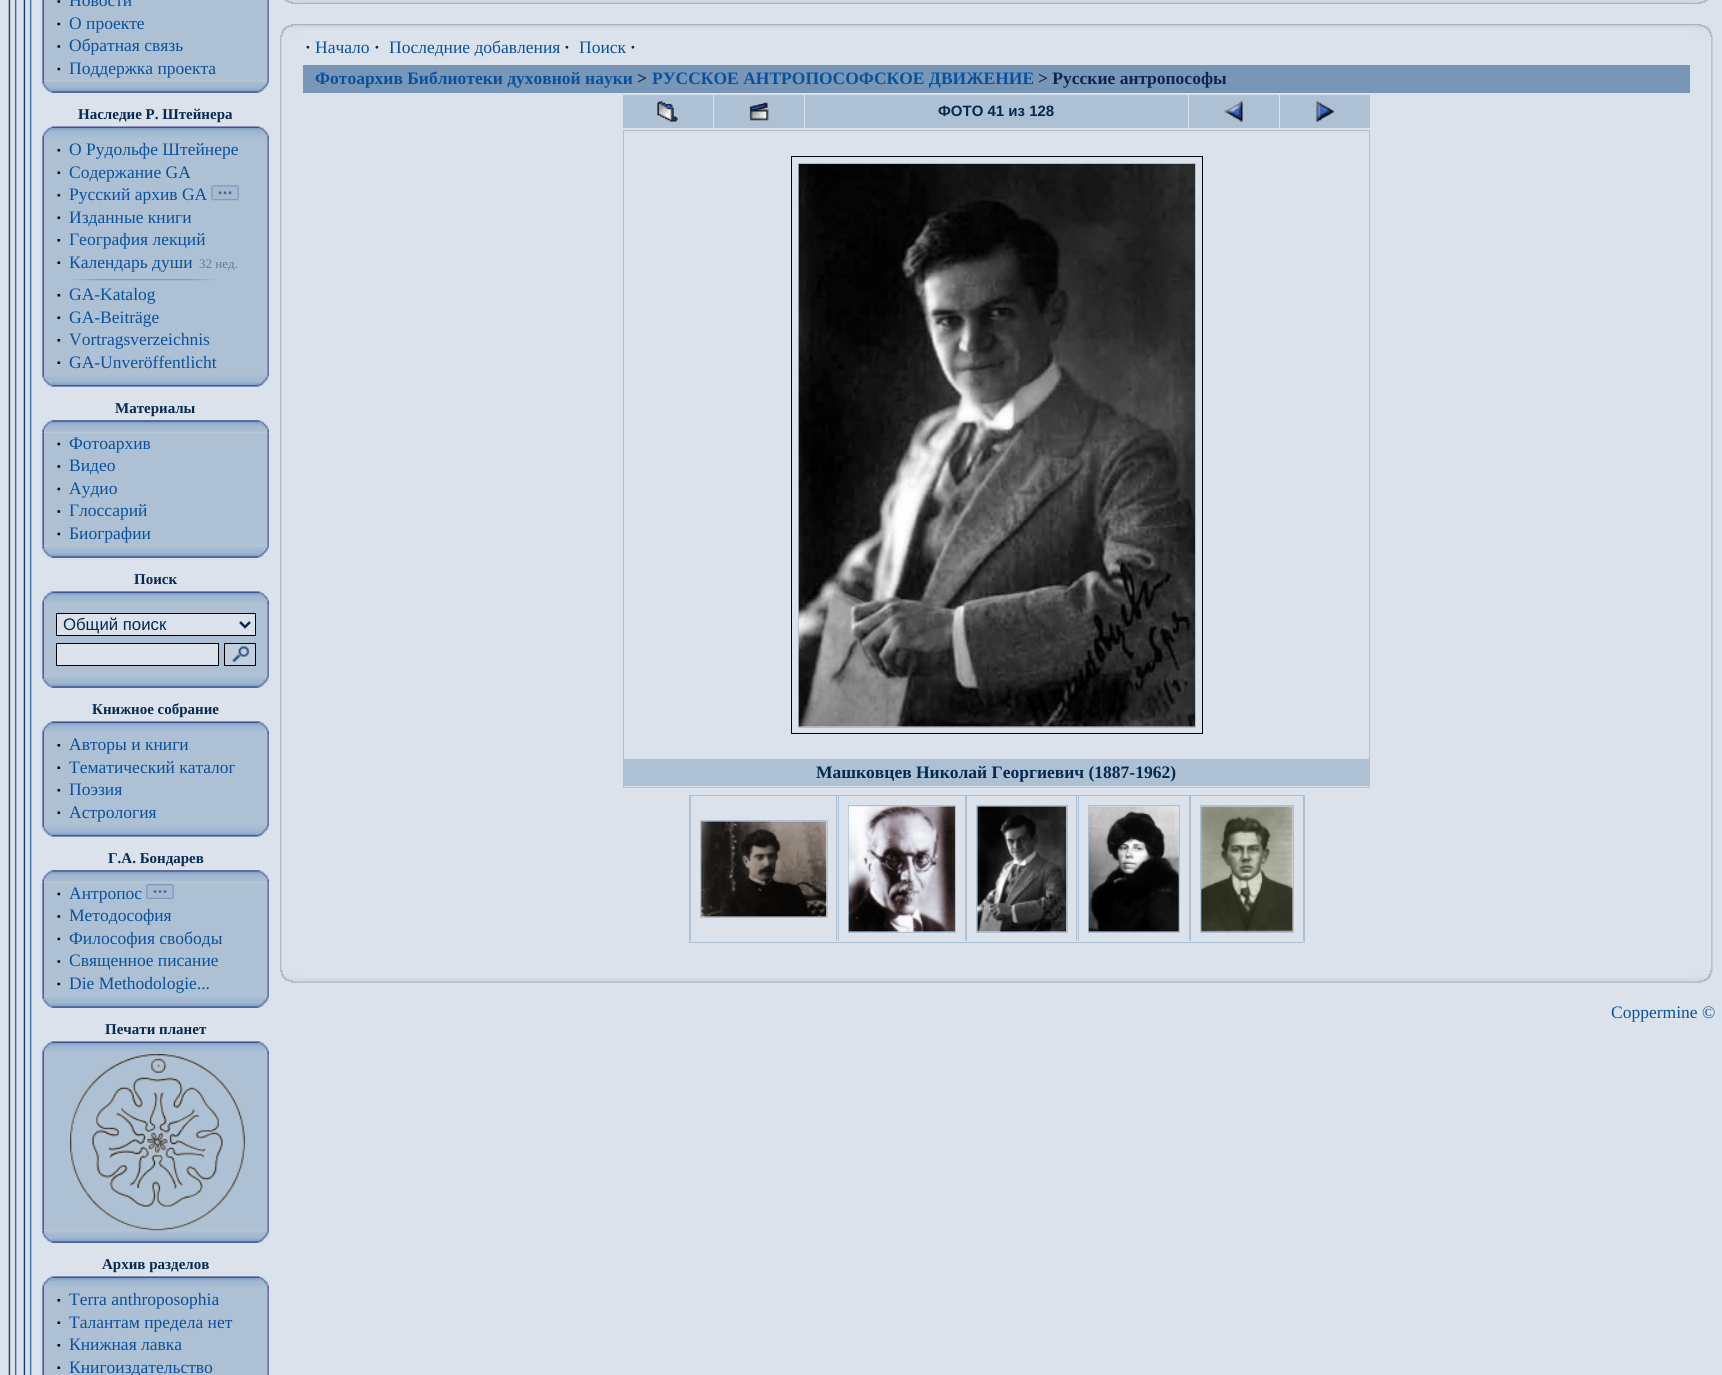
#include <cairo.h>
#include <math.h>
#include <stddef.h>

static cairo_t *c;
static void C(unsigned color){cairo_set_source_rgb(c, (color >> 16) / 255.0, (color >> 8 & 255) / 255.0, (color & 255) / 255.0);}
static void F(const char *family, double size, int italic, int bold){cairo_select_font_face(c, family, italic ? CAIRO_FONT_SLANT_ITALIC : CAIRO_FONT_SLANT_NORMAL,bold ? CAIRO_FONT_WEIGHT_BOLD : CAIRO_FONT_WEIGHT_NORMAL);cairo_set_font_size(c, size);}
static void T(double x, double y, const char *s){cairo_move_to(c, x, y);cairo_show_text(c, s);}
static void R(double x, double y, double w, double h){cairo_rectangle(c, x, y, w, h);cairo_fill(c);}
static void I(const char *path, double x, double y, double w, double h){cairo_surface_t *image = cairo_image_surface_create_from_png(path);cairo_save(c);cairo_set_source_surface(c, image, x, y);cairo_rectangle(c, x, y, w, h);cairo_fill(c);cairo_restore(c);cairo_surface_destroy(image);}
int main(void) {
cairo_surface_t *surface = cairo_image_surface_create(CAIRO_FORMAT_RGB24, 1722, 1375);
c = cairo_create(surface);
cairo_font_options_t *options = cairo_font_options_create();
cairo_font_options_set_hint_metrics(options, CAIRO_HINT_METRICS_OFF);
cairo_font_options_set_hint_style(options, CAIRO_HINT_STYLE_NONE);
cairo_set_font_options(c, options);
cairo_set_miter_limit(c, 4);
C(0xdbe2eb);
cairo_paint(c);
I("1.png",8,0,24,1375);
I("2.png",40,0,229,81);
I("3.png",57,0,4,3);
F("Liberation Serif",17.5,0,0);
C(0x0a519c);
T(69,6,"Новости");
I("4.png",57,22,4,4);
T(69,29,"О проекте");
I("3.png",57,45,4,3);
T(69,51,"Обратная связь");
I("4.png",57,67,4,4);
T(69,74,"Поддержка проекта");
I("5.png",40,80,229,13);
I("6.png",42,126,227,13);
F("Liberation Serif",15,0,1);
C(0x052950);
T(78,119,"Наследие Р. Штейнера");
I("7.png",40,139,229,235);
I("8.png",57,149,4,3);
F("Liberation Serif",17.5,0,0);
C(0x0a519c);
T(69,155,"О Рудольфе Штейнере");
I("9.png",57,171,4,3);
T(69,178,"Содержание GA");
I("10.png",57,193,4,4);
T(69,200,"Русский архив GA");
I("11.png",211,185,28,16);
I("9.png",57,216,4,3);
T(69,223,"Изданные книги");
I("8.png",57,239,4,3);
T(69,245,"География лекций");
I("9.png",57,261,4,3);
T(69,268,"Календарь души");
F("Liberation Serif",13,0,0);
C(0x627d99);
T(199,268,"32 нед.");
I("12.png",71,279,144,2);
I("8.png",57,294,4,3);
F("Liberation Serif",17.5,0,0);
C(0x0a519c);
T(69,300,"GA-Katalog");
I("9.png",57,316,4,3);
T(69,323,"GA-Beiträge");
I("8.png",57,339,4,3);
T(69,345,"Vortragsverzeichnis");
I("9.png",57,361,4,3);
T(69,368,"GA-Unveröffentlicht");
I("13.png",40,374,231,13);
I("14.png",42,420,227,13);
F("Liberation Serif",15,0,1);
C(0x052950);
T(115,413,"Материалы");
I("15.png",40,432,229,114);
I("4.png",57,442,4,4);
F("Liberation Serif",17.5,0,0);
C(0x0a519c);
T(69,449,"Фотоархив");
I("3.png",57,465,4,3);
T(69,471,"Видео");
I("4.png",57,487,4,4);
T(69,494,"Аудио");
I("3.png",57,510,4,3);
T(69,516,"Глоссарий");
I("4.png",57,532,4,4);
T(69,539,"Биографии");
I("16.png",42,545,227,13);
I("17.png",42,591,227,13);
F("Liberation Serif",15,0,1);
C(0x052950);
T(134,584,"Поиск");
I("18.png",40,604,229,72);
C(0xdbe2eb);
cairo_rectangle(c,56.5,613.5,199,22);
cairo_fill_preserve(c);
C(0x000000);
cairo_set_line_width(c,1);
cairo_stroke(c);
cairo_new_path(c);
cairo_move_to(c,240,622);
cairo_line_to(c,245,627);
cairo_line_to(c,250,622);
C(0x052950);
cairo_set_line_width(c,2.5);
cairo_stroke(c);
F("Liberation Sans",16.75,0,0);
T(63,630,"Общий поиск");
C(0xdbe2eb);
cairo_rectangle(c,56.5,643.5,162,22);
cairo_fill_preserve(c);
C(0x000000);
cairo_set_line_width(c,1);
cairo_stroke(c);
C(0xc1cfde);
R(225,644,30,21);
I("19.png",232,646,17,17);
cairo_rectangle(c,224.5,643.5,31,22);
C(0x000000);
cairo_stroke(c);
I("16.png",42,675,227,13);
I("17.png",42,721,227,13);
F("Liberation Serif",15,0,1);
C(0x052950);
T(92,714,"Книжное собрание");
I("20.png",40,734,229,90);
I("8.png",57,744,4,3);
F("Liberation Serif",17.5,0,0);
C(0x0a519c);
T(69,750,"Авторы и книги");
I("9.png",57,766,4,3);
T(69,773,"Тематический каталог");
I("8.png",57,789,4,3);
T(69,795,"Поэзия");
I("9.png",57,811,4,3);
T(69,818,"Астрология");
I("13.png",40,824,231,13);
I("21.png",42,870,227,13);
F("Liberation Serif",15,0,1);
C(0x052950);
T(108,863,"Г.А. Бондарев");
I("15.png",40,882,229,114);
I("4.png",57,892,4,4);
F("Liberation Serif",17.5,0,0);
C(0x0a519c);
T(69,899,"Антропос");
I("22.png",146,884,28,15);
I("3.png",57,915,4,3);
T(69,921,"Методософия");
I("4.png",57,937,4,4);
T(69,944,"Философия cвободы");
I("3.png",57,960,4,3);
T(69,966,"Священное писание");
I("4.png",57,982,4,4);
T(69,989,"Die Methodologie...");
I("23.png",42,995,227,13);
I("17.png",42,1041,227,13);
F("Liberation Serif",15,0,1);
C(0x052950);
T(105,1034,"Печати планет");
I("24.png",40,1054,229,177);
I("16.png",42,1230,227,13);
I("25.png",70,1054,175,177);
I("17.png",42,1276,227,13);
T(102,1269,"Архив разделов");
I("26.png",40,1289,229,86);
I("8.png",57,1299,4,3);
F("Liberation Serif",17.5,0,0);
C(0x0a519c);
T(69,1305,"Terra anthroposophia");
I("9.png",57,1321,4,3);
T(69,1328,"Талантам предела нет");
I("8.png",57,1344,4,3);
T(69,1350,"Книжная лавка");
I("9.png",57,1366,4,3);
T(69,1373,"Книгоиздательство");
I("27.png",284,0,17,4);
I("28.png",301,0,1391,4);
I("29.png",1691,0,18,4);
I("33.png",280,37,2,932);
I("30.png",280,24,21,14);
I("31.png",301,24,1391,6);
I("44.png",1711,37,2,932);
I("32.png",1691,24,22,14);
F("Liberation Serif",17.5,0,1);
C(0x052950);
T(305,53,"·");
F("Liberation Serif",17.5,0,0);
C(0x0a519c);
T(315,53,"Начало");
F("Liberation Serif",17.5,0,1);
C(0x052950);
T(374,53,"·");
F("Liberation Serif",17.5,0,0);
C(0x0a519c);
T(389,53,"Последние добавления");
F("Liberation Serif",17.5,0,1);
C(0x052950);
T(564,53,"·");
F("Liberation Serif",17.5,0,0);
C(0x0a519c);
T(579,53,"Поиск");
F("Liberation Serif",17.5,0,1);
C(0x052950);
T(630,53,"·");
C(0x7897b8);
R(303,65,1387,28);
C(0x0a519c);
T(315,84,"Фотоархив Библиотеки духовной науки");
C(0x052950);
T(637,84,">");
C(0x0a519c);
T(652,84,"РУССКОЕ АНТРОПОСОФСКОЕ ДВИЖЕНИЕ");
C(0x052950);
T(1038,84,"> Русские антропософы");
C(0xaec1d4);
R(623,95,90,33);
I("34.png",657,101,21,21);
R(714,95,90,33);
I("35.png",749,102,20,19);
R(805,95,383,33);
F("Liberation Sans",15,0,1);
C(0x052950);
T(938,116,"ФОТО 41 из 128");
C(0xaec1d4);
R(1189,95,90,33);
I("36.png",1224,101,19,21);
R(1280,95,90,33);
I("37.png",1316,101,18,21);
cairo_rectangle(c,623.5,130.5,746,657);
cairo_stroke(c);
cairo_rectangle(c,791.5,156.5,411,577);
C(0x000000);
cairo_stroke(c);
cairo_rectangle(c,798.5,163.5,397,564);
C(0xaec1d4);
cairo_stroke(c);
I("38.png",798,164,397,563);
R(624,759,745,27);
F("Liberation Serif",17.5,0,1);
C(0x052950);
T(816,778,"Машковцев Николай Георгиевич (1887-1962)");
cairo_rectangle(c,689.5,795.5,615,147);
C(0xaec1d4);
cairo_stroke(c);
R(836,796,1,145);
R(690,796,1,145);
cairo_rectangle(c,700.5,820.5,127,97);
cairo_stroke(c);
I("39.png",701,821,126,96);
R(965,796,2,145);
R(838,796,1,145);
cairo_rectangle(c,848.5,805.5,107,127);
cairo_stroke(c);
I("40.png",848,806,107,126);
R(1076,796,1,145);
cairo_rectangle(c,976.5,805.5,91,127);
cairo_stroke(c);
I("41.png",977,806,90,126);
R(1189,796,2,145);
R(1078,796,1,145);
cairo_rectangle(c,1088.5,805.5,91,127);
cairo_stroke(c);
I("42.png",1088,806,91,126);
R(1303,796,1,145);
cairo_rectangle(c,1200.5,805.5,93,127);
cairo_stroke(c);
I("43.png",1201,806,92,126);
I("46.png",301,977,1391,6);
I("45.png",280,969,22,14);
I("47.png",1691,969,22,14);
F("Liberation Serif",17.5,0,0);
C(0x0a519c);
T(1611,1018,"Coppermine ©");
cairo_surface_write_to_png(surface, "o.png");
cairo_font_options_destroy(options);
cairo_destroy(c);
cairo_surface_destroy(surface);
return 0;
}
